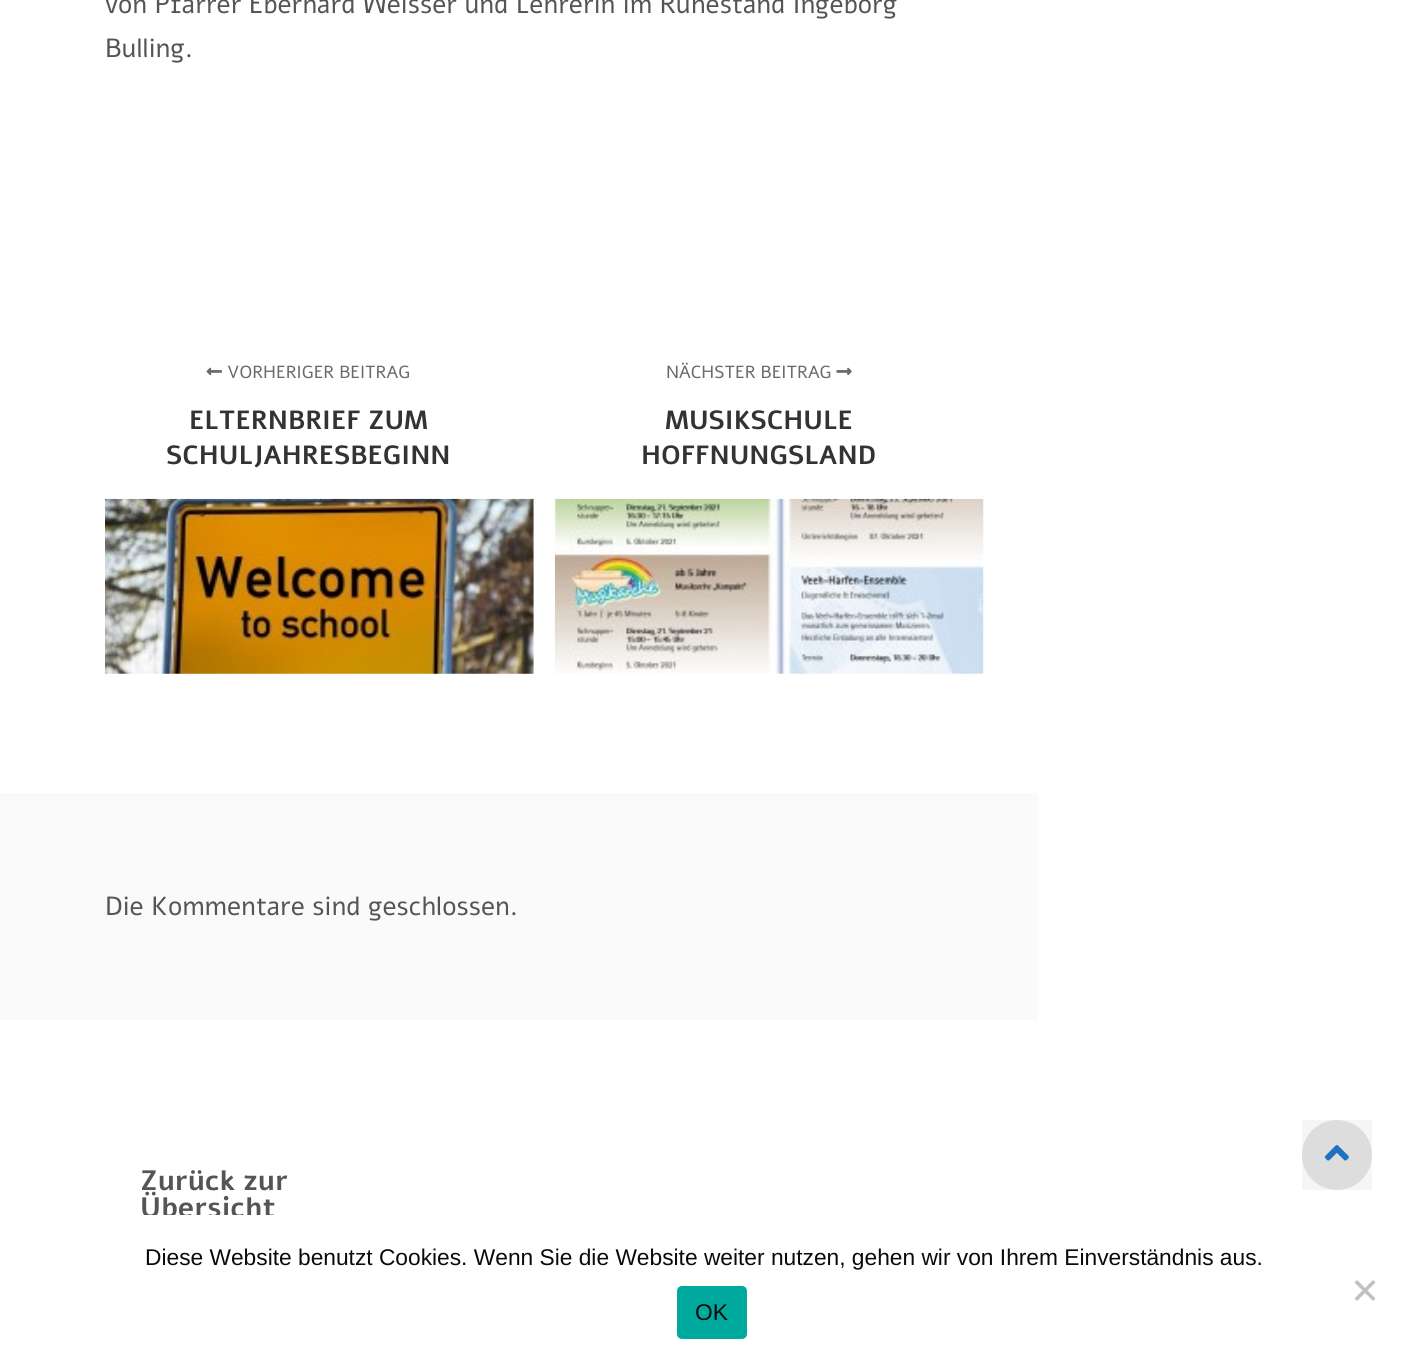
#include <cairo.h>
#include <math.h>
#include <stddef.h>

static cairo_t *c;
static void C(unsigned color){cairo_set_source_rgb(c, (color >> 16) / 255.0, (color >> 8 & 255) / 255.0, (color & 255) / 255.0);}
static void F(const char *family, double size, int italic, int bold){cairo_select_font_face(c, family, italic ? CAIRO_FONT_SLANT_ITALIC : CAIRO_FONT_SLANT_NORMAL,bold ? CAIRO_FONT_WEIGHT_BOLD : CAIRO_FONT_WEIGHT_NORMAL);cairo_set_font_size(c, size);}
static void T(double x, double y, const char *s){cairo_move_to(c, x, y);cairo_show_text(c, s);}
static void R(double x, double y, double w, double h){cairo_rectangle(c, x, y, w, h);cairo_fill(c);}
static void Q(double x, double y, double w, double h, double r){cairo_new_sub_path(c);cairo_arc(c, x + w - r, y + h - r, r, 0, M_PI / 2);cairo_arc(c, x + r, y + h - r, r, M_PI / 2, M_PI);cairo_arc(c, x + r, y + r, r, M_PI, 1.5 * M_PI);cairo_arc(c, x + w - r, y + r, r, 1.5 * M_PI, 2 * M_PI);cairo_close_path(c);}
static void I(const char *path, double x, double y, double w, double h){cairo_surface_t *image = cairo_image_surface_create_from_png(path);cairo_save(c);cairo_set_source_surface(c, image, x, y);cairo_rectangle(c, x, y, w, h);cairo_fill(c);cairo_restore(c);cairo_surface_destroy(image);}
int main(void) {
cairo_surface_t *surface = cairo_image_surface_create(CAIRO_FORMAT_RGB24, 1407, 1364);
c = cairo_create(surface);
cairo_font_options_t *options = cairo_font_options_create();
cairo_font_options_set_hint_metrics(options, CAIRO_HINT_METRICS_OFF);
cairo_font_options_set_hint_style(options, CAIRO_HINT_STYLE_NONE);
cairo_set_font_options(c, options);
cairo_set_miter_limit(c, 4);
C(0xffffff);
cairo_paint(c);
F("Alef",26.25,0,0);
C(0x555555);
T(105,13,"von Pfarrer Eberhard Weisser und Lehrerin im Ruhestand Ingeborg");
T(105,57,"Bulling.");
I("1.png",206,367,16,9);
F("Alef",17.5,0,0);
C(0x6a6a6a);
T(227,378,"VORHERIGER BEITRAG");
F("Alef",26.25,0,1);
C(0x333333);
T(189,429,"ELTERNBRIEF ZUM");
T(166,464,"SCHULJAHRESBEGINN");
I("2.png",105,498,429,176);
F("Alef",17.5,0,0);
C(0x6a6a6a);
T(666,378,"NÄCHSTER BEITRAG");
I("3.png",836,367,16,9);
F("Alef",26.25,0,1);
C(0x333333);
T(665,429,"MUSIKSCHULE");
T(641,464,"HOFFNUNGSLAND");
I("4.png",554,498,430,176);
C(0xfafafa);
R(0,793,1038,227);
F("Alef",26.25,0,0);
C(0x555555);
T(105,915,"Die Kommentare sind geschlossen.");
F("Alef",28,0,1);
T(140,1190,"Zurück zur");
T(140,1217,"Übersicht");
C(0xe6e6e6);
cairo_new_path(c);
cairo_arc(c,1337,1155,35,0,2 * M_PI);
cairo_fill(c);
cairo_set_source_rgba(c,0,0,0,0.04);
R(1302,1120,70,70);
I("5.png",1324,1145,25,16);
C(0xffffff);
R(144,1215,131,3);
F("Liberation Sans",22.75,0,0);
C(0x0a0a0a);
T(145,1265,"Diese Website benutzt Cookies. Wenn Sie die Website weiter nutzen, gehen wir von Ihrem Einverständnis aus.");
C(0xc0c0c0);
cairo_new_path(c);
cairo_move_to(c,1373,1280);
cairo_line_to(c,1375.5,1282.5);
cairo_line_to(c,1357,1301);
cairo_line_to(c,1354.5,1298.5);
cairo_close_path(c);
cairo_fill(c);
cairo_new_path(c);
cairo_move_to(c,1354.5,1282.5);
cairo_line_to(c,1357,1280);
cairo_line_to(c,1375.5,1298.5);
cairo_line_to(c,1373,1301);
cairo_close_path(c);
cairo_fill(c);
C(0x00a99d);
Q(677,1286,70,53,5);
cairo_fill(c);
C(0x0a0a0a);
T(695,1320,"OK");
cairo_surface_write_to_png(surface, "o.png");
cairo_font_options_destroy(options);
cairo_destroy(c);
cairo_surface_destroy(surface);
return 0;
}
